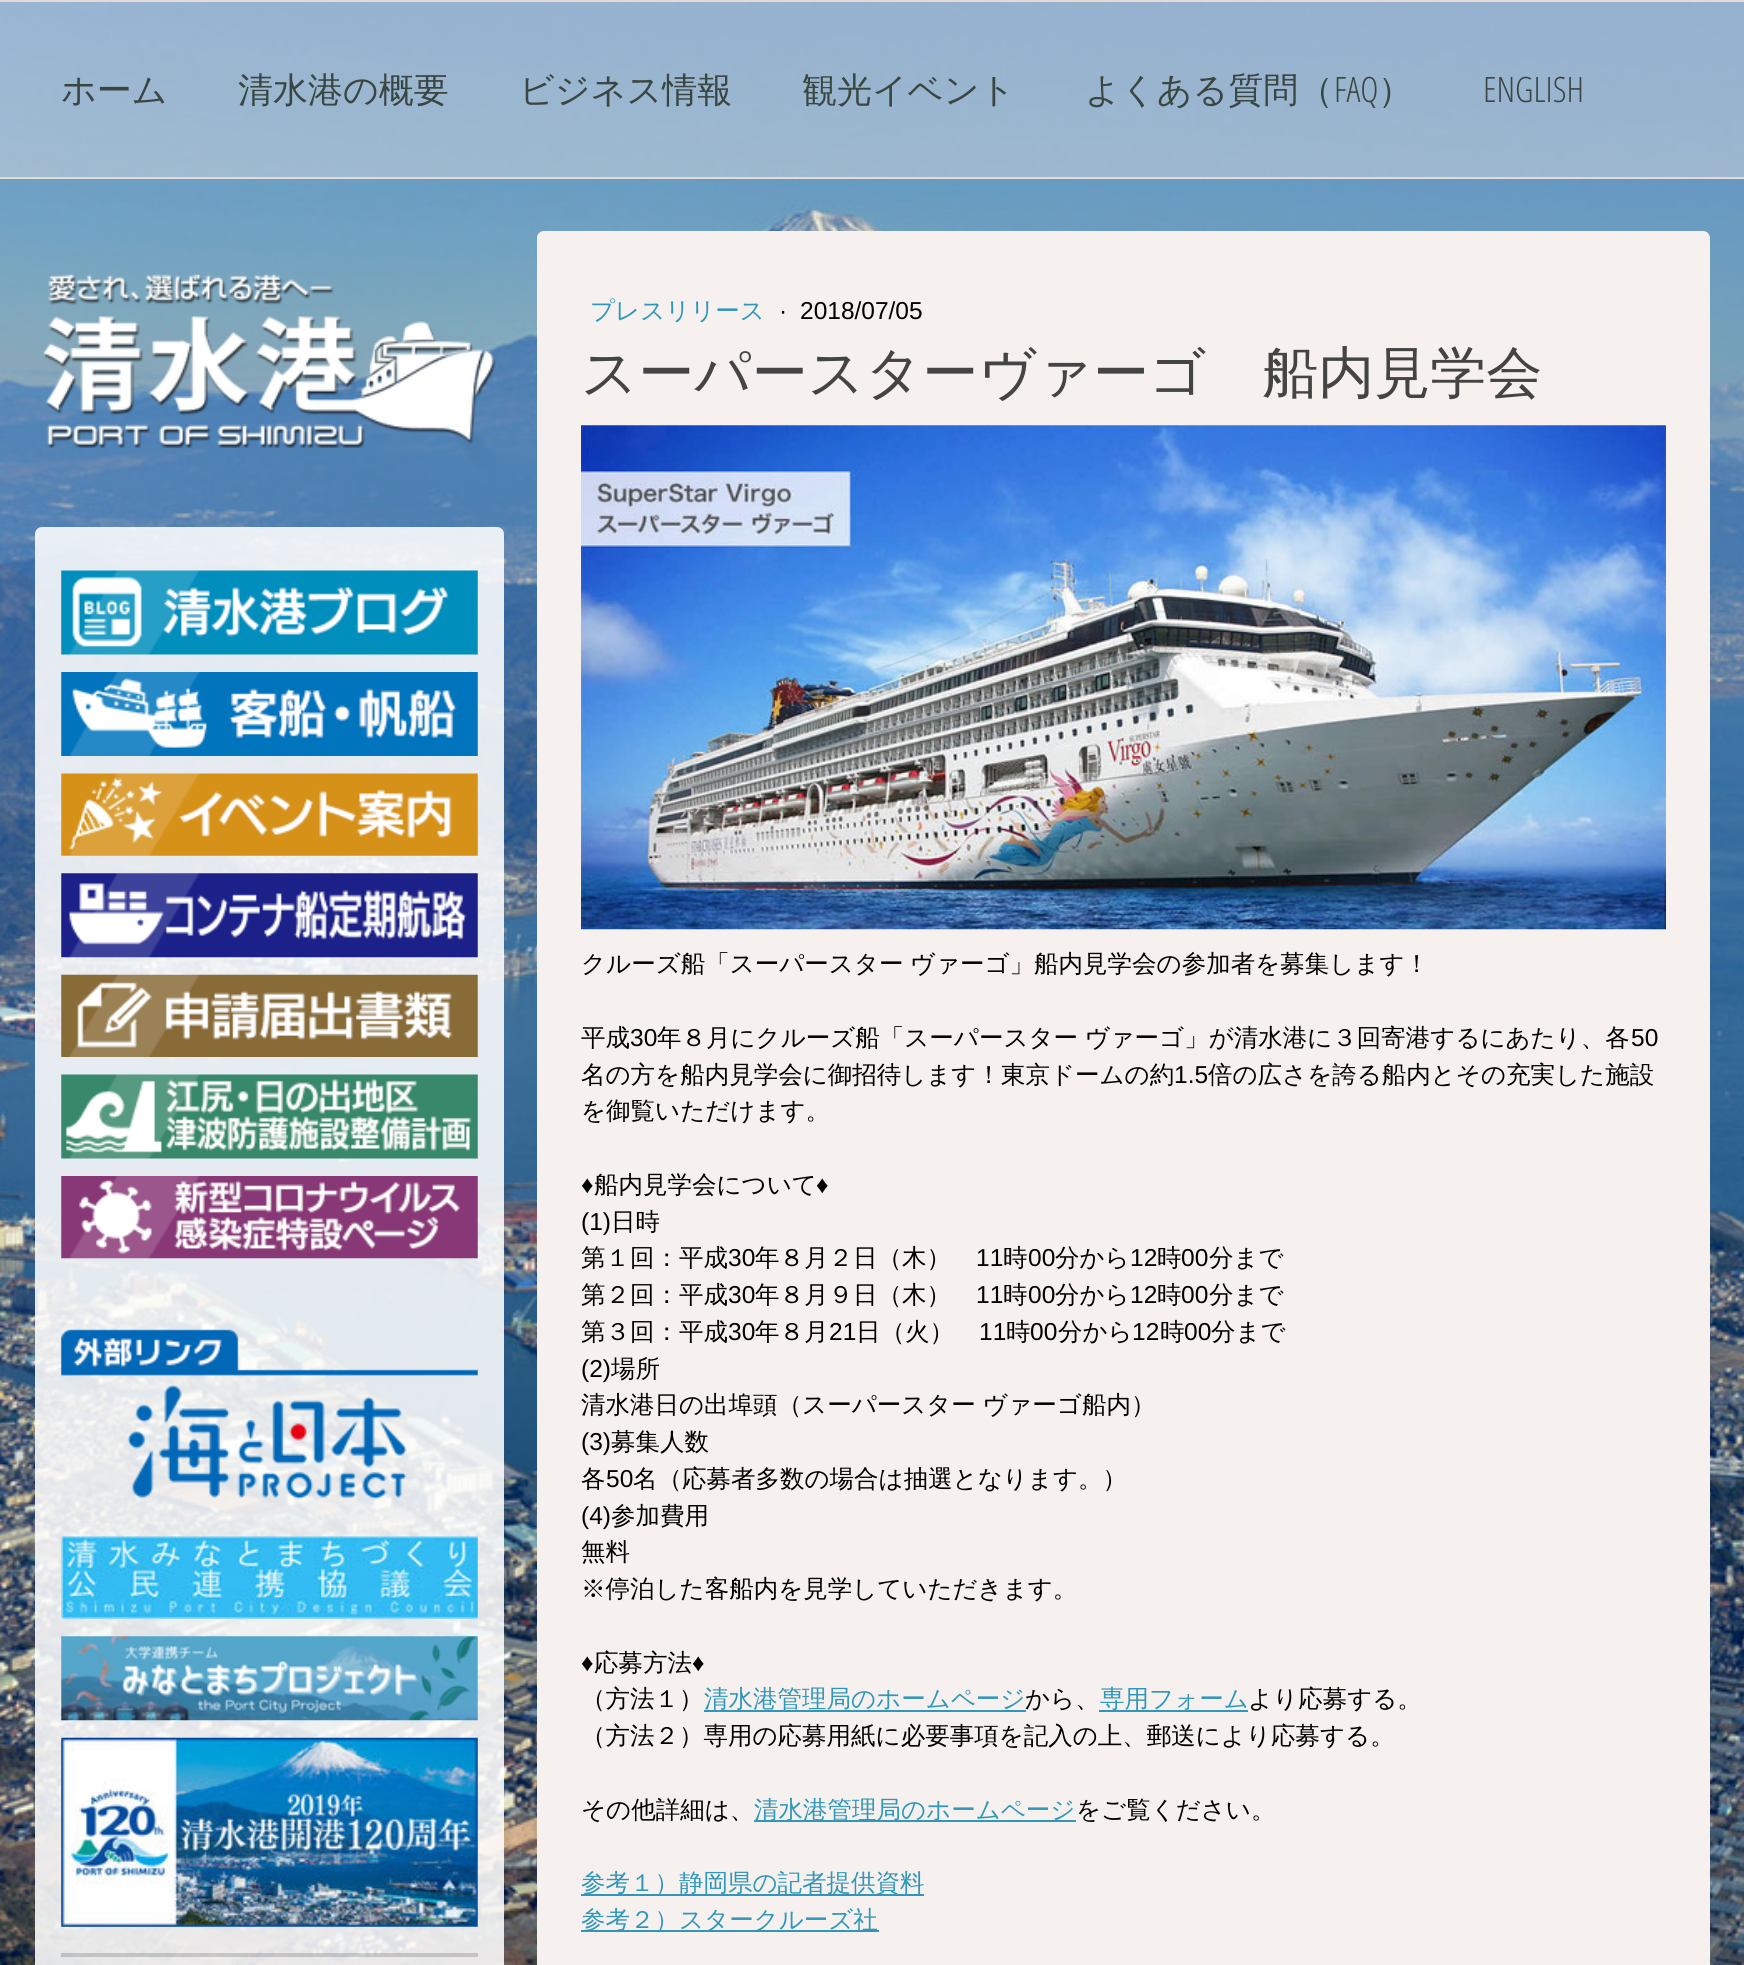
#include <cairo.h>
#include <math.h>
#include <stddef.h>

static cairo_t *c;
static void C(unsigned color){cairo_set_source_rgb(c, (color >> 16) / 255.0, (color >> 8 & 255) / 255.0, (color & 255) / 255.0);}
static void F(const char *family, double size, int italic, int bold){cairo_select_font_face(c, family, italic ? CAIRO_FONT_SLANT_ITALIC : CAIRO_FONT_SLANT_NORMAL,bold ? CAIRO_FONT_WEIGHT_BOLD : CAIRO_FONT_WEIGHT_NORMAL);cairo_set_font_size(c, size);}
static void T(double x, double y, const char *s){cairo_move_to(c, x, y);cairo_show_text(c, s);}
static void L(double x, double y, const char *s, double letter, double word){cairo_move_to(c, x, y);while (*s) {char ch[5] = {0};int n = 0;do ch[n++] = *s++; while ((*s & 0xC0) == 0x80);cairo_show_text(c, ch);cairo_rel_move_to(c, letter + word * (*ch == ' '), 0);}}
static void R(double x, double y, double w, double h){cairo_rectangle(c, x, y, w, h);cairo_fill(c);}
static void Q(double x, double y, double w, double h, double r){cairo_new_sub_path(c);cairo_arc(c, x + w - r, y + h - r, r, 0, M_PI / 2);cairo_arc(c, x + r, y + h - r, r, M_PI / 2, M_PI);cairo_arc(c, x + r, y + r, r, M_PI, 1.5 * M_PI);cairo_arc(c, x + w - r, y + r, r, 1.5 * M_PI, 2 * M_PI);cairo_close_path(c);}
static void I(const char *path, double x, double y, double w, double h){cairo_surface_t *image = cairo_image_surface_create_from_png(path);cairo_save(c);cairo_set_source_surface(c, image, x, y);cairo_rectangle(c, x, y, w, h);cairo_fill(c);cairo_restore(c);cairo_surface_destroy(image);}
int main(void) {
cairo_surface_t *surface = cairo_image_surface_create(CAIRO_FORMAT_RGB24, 1744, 1965);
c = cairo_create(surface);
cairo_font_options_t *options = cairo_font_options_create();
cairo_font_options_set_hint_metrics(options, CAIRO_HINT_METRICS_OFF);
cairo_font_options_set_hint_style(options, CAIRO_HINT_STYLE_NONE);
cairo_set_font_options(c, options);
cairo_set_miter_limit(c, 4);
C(0xffffff);
cairo_paint(c);
I("1.png",0,2,1744,1963);
cairo_set_source_rgba(c,0.929,0.89,0.875,0.4);
R(0,2,1744,175);
C(0xe7dad5);
R(0,0,1744,2);
R(0,177,1744,2);
F("WenQuanYi Zen Hei Medium",35,0,0);
C(0x3a4642);
T(61,102,"ホーム");
T(238,102,"清水港の概要");
T(519,102,"ビジネス情報");
T(802,102,"観光イベント");
T(1085,102,"よくある質問（");
F("Open Sans Condensed Light",35,0,0);
T(1334,102,"FAQ");
F("WenQuanYi Zen Hei Medium",35,0,0);
T(1378,102,"）");
F("Open Sans Condensed Light",35,0,0);
T(1483,102,"ENGLISH");
I("2.png",43,274,453,174);
C(0xf6f1ef);
Q(537,231,1173,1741,7);
cairo_fill(c);
F("WenQuanYi Zen Hei Medium",24.5,0,0);
C(0x3197b9);
T(590,319,"プレスリリース");
F("Liberation Sans",24.5,0,0);
C(0x000000);
T(779,319,"·");
T(800,319,"2018/07/05");
F("WenQuanYi Zen Hei Medium",56,0,0);
C(0x444444);
T(581,392,"スーパースターヴァーゴ　船内見学会");
I("3.png",581,425,1085,505);
F("WenQuanYi Zen Hei Medium",24.5,0,0);
C(0x000000);
L(581,972,"クルーズ船「スーパースター ヴァーゴ」船内見学会の参加者を募集します！",0,-1);
T(581,1046,"平成");
F("Liberation Sans",24.5,0,0);
T(630,1046,"30");
F("WenQuanYi Zen Hei Medium",24.5,0,0);
L(657,1046,"年８月にクルーズ船「スーパースター ヴァーゴ」が清水港に３回寄港するにあたり、各",0,-1);
F("Liberation Sans",24.5,0,0);
T(1631,1046,"50");
F("WenQuanYi Zen Hei Medium",24.5,0,0);
T(581,1083,"名の方を船内見学会に御招待します！東京ドームの約");
F("Liberation Sans",24.5,0,0);
T(1174,1083,"1.5");
F("WenQuanYi Zen Hei Medium",24.5,0,0);
T(1208,1083,"倍の広さを誇る船内とその充実した施設");
T(581,1119,"を御覧いただけます。");
F("Liberation Sans",24.5,0,0);
T(581,1193,"♦");
F("WenQuanYi Zen Hei Medium",24.5,0,0);
T(594,1193,"船内見学会について");
F("Liberation Sans",24.5,0,0);
T(816,1193,"♦");
T(581,1230,"(1)");
F("WenQuanYi Zen Hei Medium",24.5,0,0);
T(611,1230,"日時");
T(581,1266,"第１回：平成");
F("Liberation Sans",24.5,0,0);
T(728,1266,"30");
F("WenQuanYi Zen Hei Medium",24.5,0,0);
T(755,1266,"年８月２日（木）");
F("Liberation Sans",24.5,0,0);
T(976,1266,"11");
F("WenQuanYi Zen Hei Medium",24.5,0,0);
T(1003,1266,"時");
F("Liberation Sans",24.5,0,0);
T(1028,1266,"00");
F("WenQuanYi Zen Hei Medium",24.5,0,0);
T(1055,1266,"分から");
F("Liberation Sans",24.5,0,0);
T(1130,1266,"12");
F("WenQuanYi Zen Hei Medium",24.5,0,0);
T(1157,1266,"時");
F("Liberation Sans",24.5,0,0);
T(1181,1266,"00");
F("WenQuanYi Zen Hei Medium",24.5,0,0);
T(1209,1266,"分まで");
T(581,1303,"第２回：平成");
F("Liberation Sans",24.5,0,0);
T(728,1303,"30");
F("WenQuanYi Zen Hei Medium",24.5,0,0);
T(755,1303,"年８月９日（木）");
F("Liberation Sans",24.5,0,0);
T(976,1303,"11");
F("WenQuanYi Zen Hei Medium",24.5,0,0);
T(1003,1303,"時");
F("Liberation Sans",24.5,0,0);
T(1028,1303,"00");
F("WenQuanYi Zen Hei Medium",24.5,0,0);
T(1055,1303,"分から");
F("Liberation Sans",24.5,0,0);
T(1130,1303,"12");
F("WenQuanYi Zen Hei Medium",24.5,0,0);
T(1157,1303,"時");
F("Liberation Sans",24.5,0,0);
T(1181,1303,"00");
F("WenQuanYi Zen Hei Medium",24.5,0,0);
T(1209,1303,"分まで");
T(581,1340,"第３回：平成");
F("Liberation Sans",24.5,0,0);
T(728,1340,"30");
F("WenQuanYi Zen Hei Medium",24.5,0,0);
T(755,1340,"年８月");
F("Liberation Sans",24.5,0,0);
T(829,1340,"21");
F("WenQuanYi Zen Hei Medium",24.5,0,0);
T(856,1340,"日（火）");
F("Liberation Sans",24.5,0,0);
T(979,1340,"11");
F("WenQuanYi Zen Hei Medium",24.5,0,0);
T(1006,1340,"時");
F("Liberation Sans",24.5,0,0);
T(1030,1340,"00");
F("WenQuanYi Zen Hei Medium",24.5,0,0);
T(1058,1340,"分から");
F("Liberation Sans",24.5,0,0);
T(1132,1340,"12");
F("WenQuanYi Zen Hei Medium",24.5,0,0);
T(1160,1340,"時");
F("Liberation Sans",24.5,0,0);
T(1184,1340,"00");
F("WenQuanYi Zen Hei Medium",24.5,0,0);
T(1211,1340,"分まで");
F("Liberation Sans",24.5,0,0);
T(581,1377,"(2)");
F("WenQuanYi Zen Hei Medium",24.5,0,0);
T(611,1377,"場所");
L(581,1413,"清水港日の出埠頭（スーパースター ヴァーゴ船内）",0,-1);
F("Liberation Sans",24.5,0,0);
T(581,1450,"(3)");
F("WenQuanYi Zen Hei Medium",24.5,0,0);
T(611,1450,"募集人数");
T(581,1487,"各");
F("Liberation Sans",24.5,0,0);
T(606,1487,"50");
F("WenQuanYi Zen Hei Medium",24.5,0,0);
T(633,1487,"名（応募者多数の場合は抽選となります。）");
F("Liberation Sans",24.5,0,0);
T(581,1524,"(4)");
F("WenQuanYi Zen Hei Medium",24.5,0,0);
T(611,1524,"参加費用");
T(581,1560,"無料");
T(581,1597,"※停泊した客船内を見学していただきます。");
F("Liberation Sans",24.5,0,0);
T(581,1671,"♦");
F("WenQuanYi Zen Hei Medium",24.5,0,0);
T(594,1671,"応募方法");
F("Liberation Sans",24.5,0,0);
T(692,1671,"♦");
F("WenQuanYi Zen Hei Medium",24.5,0,0);
T(581,1707,"（方法１）");
C(0x3197b9);
R(704,1710,322,2);
T(704,1707,"清水港管理局のホームページ");
C(0x000000);
T(1025,1707,"から、");
C(0x3197b9);
R(1099,1710,149,2);
T(1100,1707,"専用フォーム");
C(0x000000);
T(1248,1707,"より応募する。");
T(581,1744,"（方法２）専用の応募用紙に必要事項を記入の上、郵送により応募する。");
T(581,1818,"その他詳細は、");
C(0x3197b9);
R(754,1820,322,2);
T(754,1818,"清水港管理局のホームページ");
C(0x000000);
T(1076,1818,"をご覧ください。");
C(0x3197b9);
R(581,1894,343,2);
T(581,1891,"参考１）静岡県の記者提供資料");
R(581,1930,298,2);
T(581,1928,"参考２）スタークルーズ社");
cairo_set_source_rgba(c,1,1,1,0.87);
Q(35,527,469,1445,7);
cairo_fill(c);
I("4.png",61,570,417,85);
I("5.png",61,672,417,84);
I("6.png",61,773,417,83);
I("7.png",61,873,417,85);
I("8.png",61,974,417,83);
I("9.png",61,1074,417,85);
I("10.png",61,1176,417,83);
I("11.png",61,1329,417,171);
I("12.png",61,1536,417,83);
I("13.png",61,1636,417,85);
I("14.png",61,1737,417,190);
cairo_set_source_rgba(c,0,0,0,0.16);
R(61,1953,417,4);
cairo_surface_write_to_png(surface, "o.png");
cairo_font_options_destroy(options);
cairo_destroy(c);
cairo_surface_destroy(surface);
return 0;
}
